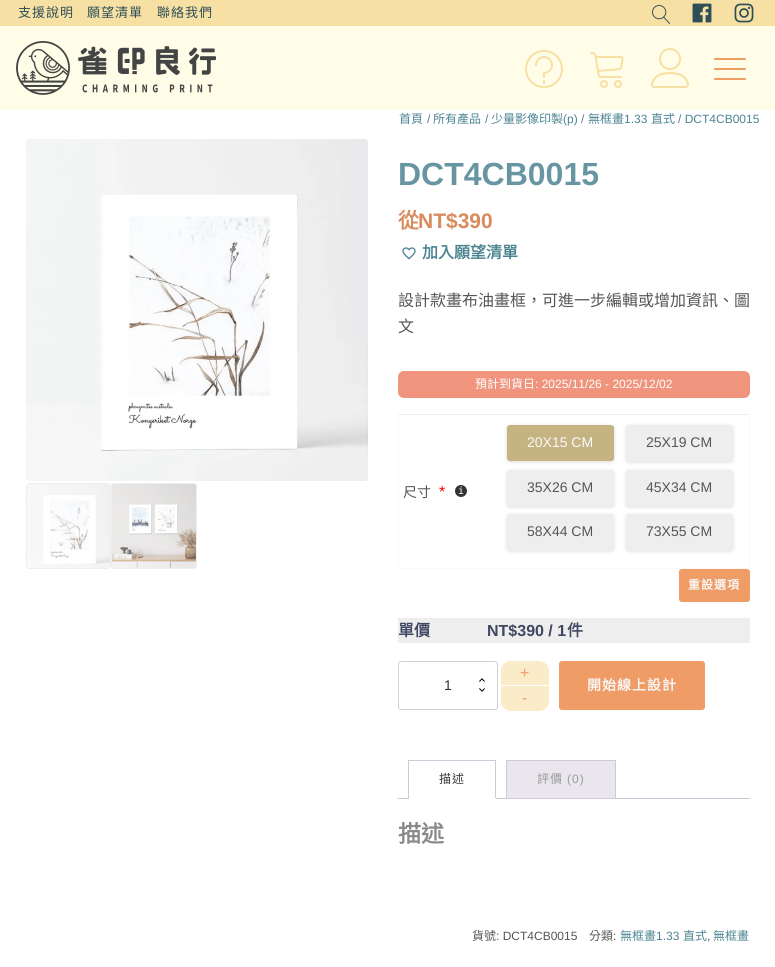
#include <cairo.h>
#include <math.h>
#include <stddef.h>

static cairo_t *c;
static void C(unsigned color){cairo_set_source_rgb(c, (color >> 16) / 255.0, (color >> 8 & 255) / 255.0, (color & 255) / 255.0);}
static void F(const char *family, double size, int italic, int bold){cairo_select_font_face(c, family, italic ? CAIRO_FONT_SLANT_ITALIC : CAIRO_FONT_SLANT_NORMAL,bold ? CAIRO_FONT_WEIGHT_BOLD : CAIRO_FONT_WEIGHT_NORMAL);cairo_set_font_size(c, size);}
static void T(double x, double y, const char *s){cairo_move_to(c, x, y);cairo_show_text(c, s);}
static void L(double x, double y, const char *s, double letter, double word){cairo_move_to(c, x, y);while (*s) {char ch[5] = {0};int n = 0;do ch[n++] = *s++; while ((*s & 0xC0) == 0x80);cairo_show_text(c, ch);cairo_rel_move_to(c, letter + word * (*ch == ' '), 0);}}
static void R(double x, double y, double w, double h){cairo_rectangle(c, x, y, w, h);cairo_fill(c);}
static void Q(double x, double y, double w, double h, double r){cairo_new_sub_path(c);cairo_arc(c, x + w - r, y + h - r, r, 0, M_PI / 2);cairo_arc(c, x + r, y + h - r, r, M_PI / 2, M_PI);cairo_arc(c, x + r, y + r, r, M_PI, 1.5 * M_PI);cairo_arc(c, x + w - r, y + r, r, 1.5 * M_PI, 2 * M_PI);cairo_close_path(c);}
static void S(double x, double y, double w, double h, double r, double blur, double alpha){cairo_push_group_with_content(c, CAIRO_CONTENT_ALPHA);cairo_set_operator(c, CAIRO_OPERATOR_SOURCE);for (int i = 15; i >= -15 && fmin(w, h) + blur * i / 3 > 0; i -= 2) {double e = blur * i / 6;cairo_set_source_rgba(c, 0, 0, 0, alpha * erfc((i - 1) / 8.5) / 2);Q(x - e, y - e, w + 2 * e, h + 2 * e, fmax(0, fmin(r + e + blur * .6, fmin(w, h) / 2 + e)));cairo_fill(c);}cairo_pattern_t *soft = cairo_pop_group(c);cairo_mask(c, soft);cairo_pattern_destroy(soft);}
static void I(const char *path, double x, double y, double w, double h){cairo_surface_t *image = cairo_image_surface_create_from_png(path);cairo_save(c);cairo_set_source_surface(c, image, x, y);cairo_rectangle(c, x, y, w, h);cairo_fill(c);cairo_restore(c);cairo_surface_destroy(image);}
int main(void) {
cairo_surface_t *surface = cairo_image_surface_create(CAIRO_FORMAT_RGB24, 775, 967);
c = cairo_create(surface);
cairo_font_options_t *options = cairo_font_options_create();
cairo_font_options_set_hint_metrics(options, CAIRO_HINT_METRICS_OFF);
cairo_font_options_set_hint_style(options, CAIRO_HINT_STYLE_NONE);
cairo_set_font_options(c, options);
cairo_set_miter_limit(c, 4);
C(0xffffff);
cairo_paint(c);
C(0xf7e0a3);
R(0,0,775,26);
F("Noto Sans CJK TC",13,0,0);
C(0x2e4f58);
L(18,17,"支援說明",1,0);
L(87,17,"願望清單",1,0);
L(157,17,"聯絡我們",1,0);
I("1.png",652,5,18,19);
I("2.png",692,3,20,20);
I("3.png",734,3,20,20);
C(0xfffde8);
R(0,26,775,84);
I("4.png",16,41,200,54);
I("5.png",525,50,38,38);
I("6.png",590,52,34,36);
I("7.png",651,48,38,40);
I("8.png",714,58,32,22);
F("Noto Sans CJK TC",12,0,0);
C(0x4c8492);
T(399,123,"首頁");
F("Liberation Sans",12,0,0);
T(427,123,"/");
F("Noto Sans CJK TC",12,0,0);
T(433,123,"所有產品");
F("Liberation Sans",12,0,0);
T(485,123,"/");
F("Noto Sans CJK TC",12,0,0);
T(491,123,"少量影像印製");
F("Liberation Sans",12,0,0);
T(563,123,"(p) /");
F("Noto Sans CJK TC",12,0,0);
T(588,123,"無框畫");
F("Liberation Sans",12,0,0);
T(624,123,"1.33");
F("Noto Sans CJK TC",12,0,0);
T(651,123,"直式");
F("Liberation Sans",12,0,0);
T(678,123,"/ DCT4CB0015");
I("9.png",26,139,342,342);
Q(26.5,483.5,84,85,2.5);
C(0xeeeeee);
cairo_set_line_width(c,1);
cairo_stroke(c);
I("10.png",27,484,83,84);
Q(111.5,483.5,85,85,2.5);
cairo_stroke(c);
I("11.png",112,484,84,84);
F("Liberation Sans",32,0,1);
C(0x6796a2);
T(398,185,"DCT4CB0015");
F("Noto Sans CJK TC",21,0,1);
C(0xd88c5d);
T(398,228,"從");
F("Liberation Sans",21,0,1);
T(418,228,"NT$390");
I("12.png",402,247,14,13);
F("Noto Sans CJK TC",16,0,1);
C(0x4c8492);
T(422,258,"加入願望清單");
F("Noto Sans CJK TC",16,0,0);
C(0x565656);
T(398,306,"設計款畫布油畫框，可進一步編輯或增加資訊、圖");
T(398,332,"文");
C(0xf0947e);
Q(398,371,352,27,6);
cairo_fill(c);
F("Noto Sans CJK TC",12,0,0);
C(0xffffff);
T(475,388,"預計到貨日");
F("Liberation Sans",12,0,0);
T(535,388,": 2025/11/26 - 2025/12/02");
C(0xeeeeee);
R(398,414,352,1);
C(0xf8f8f8);
R(749,414,1,155);
R(398,568,352,1);
R(398,414,1,155);
F("Noto Sans CJK TC",14,0,0);
C(0x565656);
T(403,497,"尺寸");
F("Liberation Sans",16,0,0);
C(0xff0000);
T(439,497,"*");
C(0x333333);
cairo_new_path(c);
cairo_arc(c,461,491,6,0,2 * M_PI);
cairo_fill(c);
F("DejaVu Sans Mono",10,0,0);
C(0xffffff);
T(458,494,"i");
C(0x000000);
S(507,426,107,36,3,2,.14);
C(0xc6b382);
Q(507,425,107,36,3);
cairo_fill(c);
F("Liberation Sans",14,0,0);
C(0xf9f9f9);
T(527,447,"20X15 CM");
C(0x000000);
S(626,426,107,36,3,2,.14);
C(0xeeeeee);
Q(626,425,107,36,3);
cairo_fill(c);
C(0x565656);
T(646,447,"25X19 CM");
C(0x000000);
S(507,471,107,36,3,2,.14);
C(0xeeeeee);
Q(507,470,107,36,3);
cairo_fill(c);
C(0x565656);
T(527,492,"35X26 CM");
C(0x000000);
S(626,471,107,36,3,2,.14);
C(0xeeeeee);
Q(626,470,107,36,3);
cairo_fill(c);
C(0x565656);
T(646,492,"45X34 CM");
C(0x000000);
S(507,515,107,36,3,2,.14);
C(0xeeeeee);
Q(507,514,107,36,3);
cairo_fill(c);
C(0x565656);
T(527,536,"58X44 CM");
C(0x000000);
S(626,515,107,36,3,2,.14);
C(0xeeeeee);
Q(626,514,107,36,3);
cairo_fill(c);
C(0x565656);
T(646,536,"73X55 CM");
C(0xf09c67);
Q(679.5,569.5,70,32,2.5);
cairo_fill_preserve(c);
cairo_stroke(c);
F("Noto Sans CJK TC",12,0,1);
C(0xf9f9f9);
L(688,589,"重設選項",1,0);
C(0xeeeeee);
R(398,619,352,24);
R(397,618,353,1);
F("Noto Sans CJK TC",16,0,1);
C(0x404762);
T(398,636,"單價");
F("Liberation Sans",16,0,1);
T(487,636,"NT$390 / 1");
F("Noto Sans CJK TC",16,0,1);
T(567,636,"件");
I("13.png",479,678,6,4);
I("14.png",479,688,6,4);
Q(398.5,661.5,99,48,2.5);
C(0xd3ced2);
cairo_stroke(c);
F("Liberation Sans",14,0,0);
C(0x353535);
T(444,690,"1");
C(0xfaecc8);
cairo_new_path(c);
cairo_move_to(c,511,661);
cairo_line_to(c,539,661);
cairo_curve_to(c,544.5,661,549,665.5,549,671);
cairo_line_to(c,549,685);
cairo_line_to(c,501,685);
cairo_line_to(c,501,671);
cairo_curve_to(c,501,665.5,505.5,661,511,661);
cairo_close_path(c);
cairo_fill(c);
F("Liberation Sans",16,0,0);
C(0xf09c67);
T(520,678,"+");
C(0xfaecc8);
cairo_new_path(c);
cairo_move_to(c,501,686);
cairo_line_to(c,549,686);
cairo_line_to(c,549,701);
cairo_curve_to(c,549,706.5,544.5,711,539,711);
cairo_line_to(c,511,711);
cairo_curve_to(c,505.5,711,501,706.5,501,701);
cairo_close_path(c);
cairo_fill(c);
C(0xf09c67);
T(522,703,"-");
Q(559.5,661.5,145,48,2.5);
cairo_fill_preserve(c);
cairo_stroke(c);
F("Noto Sans CJK TC",14,0,1);
C(0xf9f9f9);
L(587,690,"開始線上設計",1,0);
C(0xcfc8d8);
R(408,760,88,1);
C(0xe9e6ed);
cairo_rectangle(c,506.5,760.5,109,38);
cairo_fill_preserve(c);
C(0xcfc8d8);
cairo_stroke(c);
R(398,798,352,1);
R(495,760,1,39);
C(0xffffff);
R(408,798,88,1);
C(0xcfc8d8);
R(408,760,1,39);
F("Noto Sans CJK TC",12,0,0);
C(0x353535);
L(439,783,"描述",1,0);
C(0x999999);
L(537,783,"評價",1,0);
F("Liberation Sans",12,0,0);
L(567,783,"(0)",1,0);
F("Noto Sans CJK TC",23,0,1);
C(0x898989);
T(398,842,"描述");
F("Noto Sans CJK TC",12,0,0);
C(0x565656);
T(472,940,"貨號");
F("Liberation Sans",12,0,0);
T(496,940,": DCT4CB0015");
F("Noto Sans CJK TC",12,0,0);
T(589,940,"分類");
F("Liberation Sans",12,0,0);
T(613,940,":");
F("Noto Sans CJK TC",12,0,0);
C(0x4c8492);
T(620,940,"無框畫");
F("Liberation Sans",12,0,0);
T(656,940,"1.33");
F("Noto Sans CJK TC",12,0,0);
T(683,940,"直式");
F("Liberation Sans",12,0,0);
C(0x565656);
T(707,940,",");
F("Noto Sans CJK TC",12,0,0);
C(0x4c8492);
T(713,940,"無框畫");
cairo_surface_write_to_png(surface, "o.png");
cairo_font_options_destroy(options);
cairo_destroy(c);
cairo_surface_destroy(surface);
return 0;
}
